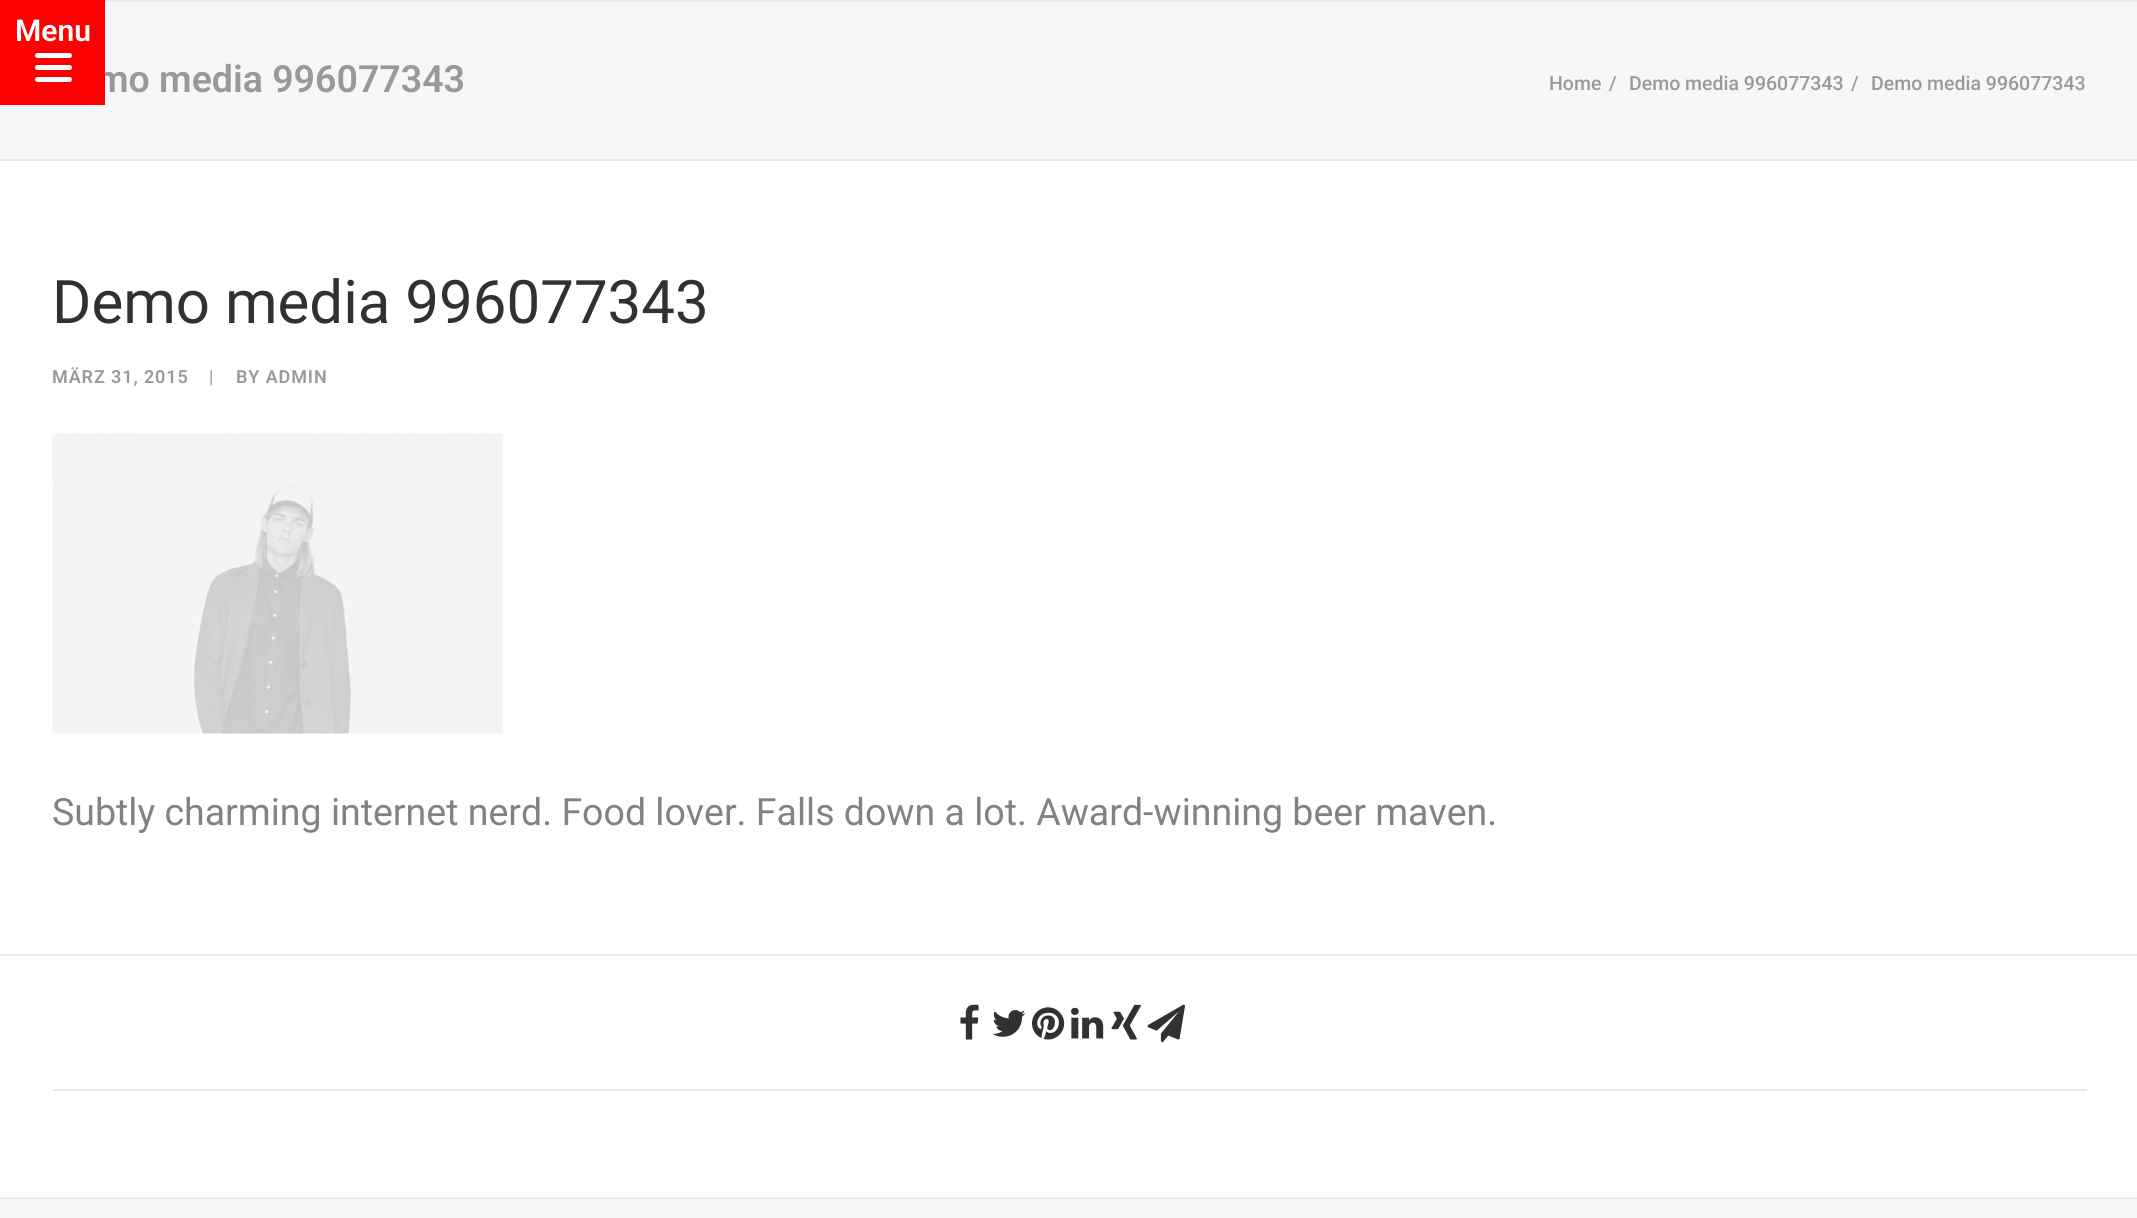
#include <cairo.h>
#include <math.h>
#include <stddef.h>

static cairo_t *c;
static void C(unsigned color){cairo_set_source_rgb(c, (color >> 16) / 255.0, (color >> 8 & 255) / 255.0, (color & 255) / 255.0);}
static void F(const char *family, double size, int italic, int bold){cairo_select_font_face(c, family, italic ? CAIRO_FONT_SLANT_ITALIC : CAIRO_FONT_SLANT_NORMAL,bold ? CAIRO_FONT_WEIGHT_BOLD : CAIRO_FONT_WEIGHT_NORMAL);cairo_set_font_size(c, size);}
static void T(double x, double y, const char *s){cairo_move_to(c, x, y);cairo_show_text(c, s);}
static void L(double x, double y, const char *s, double letter, double word){cairo_move_to(c, x, y);while (*s) {char ch[5] = {0};int n = 0;do ch[n++] = *s++; while ((*s & 0xC0) == 0x80);cairo_show_text(c, ch);cairo_rel_move_to(c, letter + word * (*ch == ' '), 0);}}
static void R(double x, double y, double w, double h){cairo_rectangle(c, x, y, w, h);cairo_fill(c);}
static void Q(double x, double y, double w, double h, double r){cairo_new_sub_path(c);cairo_arc(c, x + w - r, y + h - r, r, 0, M_PI / 2);cairo_arc(c, x + r, y + h - r, r, M_PI / 2, M_PI);cairo_arc(c, x + r, y + r, r, M_PI, 1.5 * M_PI);cairo_arc(c, x + w - r, y + r, r, 1.5 * M_PI, 2 * M_PI);cairo_close_path(c);}
static void I(const char *path, double x, double y, double w, double h){cairo_surface_t *image = cairo_image_surface_create_from_png(path);cairo_save(c);cairo_set_source_surface(c, image, x, y);cairo_rectangle(c, x, y, w, h);cairo_fill(c);cairo_restore(c);cairo_surface_destroy(image);}
int main(void) {
cairo_surface_t *surface = cairo_image_surface_create(CAIRO_FORMAT_RGB24, 2137, 1218);
c = cairo_create(surface);
cairo_font_options_t *options = cairo_font_options_create();
cairo_font_options_set_hint_metrics(options, CAIRO_HINT_METRICS_OFF);
cairo_font_options_set_hint_style(options, CAIRO_HINT_STYLE_NONE);
cairo_set_font_options(c, options);
cairo_set_miter_limit(c, 4);
C(0xeaeaea);
cairo_paint(c);
C(0xf7f7f7);
R(0,2,2137,157);
F("Roboto SemiBold",37.5,0,0);
C(0x999999);
T(96,92,"mo media 996077343");
C(0xff0000);
R(0,0,105,105);
F("Roboto SemiBold",30,0,0);
C(0xffffff);
T(15,41,"Menu");
Q(35,65,37,5,2.5);
cairo_fill(c);
Q(35,53,37,5,2.5);
cairo_fill(c);
Q(35,77,37,5,2.5);
cairo_fill(c);
F("Roboto Medium",19.5,0,0);
C(0x999999);
T(1549,90,"Home");
T(1609,90,"/");
T(1629,90,"Demo media 996077343");
T(1851,90,"/");
T(1871,90,"Demo media 996077343");
C(0xffffff);
R(0,161,2137,1036);
F("Roboto",60,0,0);
C(0x303133);
T(52,323,"Demo media 996077343");
F("Roboto SemiBold",18,0,0);
C(0x999999);
L(52,383,"MÄRZ 31, 2015",.9,0);
F("Roboto",18,0,0);
L(209,383,"|",.9,0);
F("Roboto SemiBold",18,0,0);
L(236,383,"BY ADMIN",.9,0);
I("1.png",52,433,451,301);
F("Roboto",37.5,0,0);
C(0x828282);
T(52,825,"Subtly charming internet nerd. Food lover. Falls down a lot. Award-winning beer maven.");
C(0xeaeaea);
R(0,954,2137,2);
R(53,1089,2034,2);
I("2.png",960,1004,19,36);
I("3.png",992,1010,34,27);
I("4.png",1032,1007,33,33);
I("5.png",1071,1007,33,32);
I("6.png",1111,1004,30,36);
I("7.png",1147,1004,38,39);
C(0xf7f7f7);
R(0,1199,2137,19);
cairo_surface_write_to_png(surface, "o.png");
cairo_font_options_destroy(options);
cairo_destroy(c);
cairo_surface_destroy(surface);
return 0;
}
